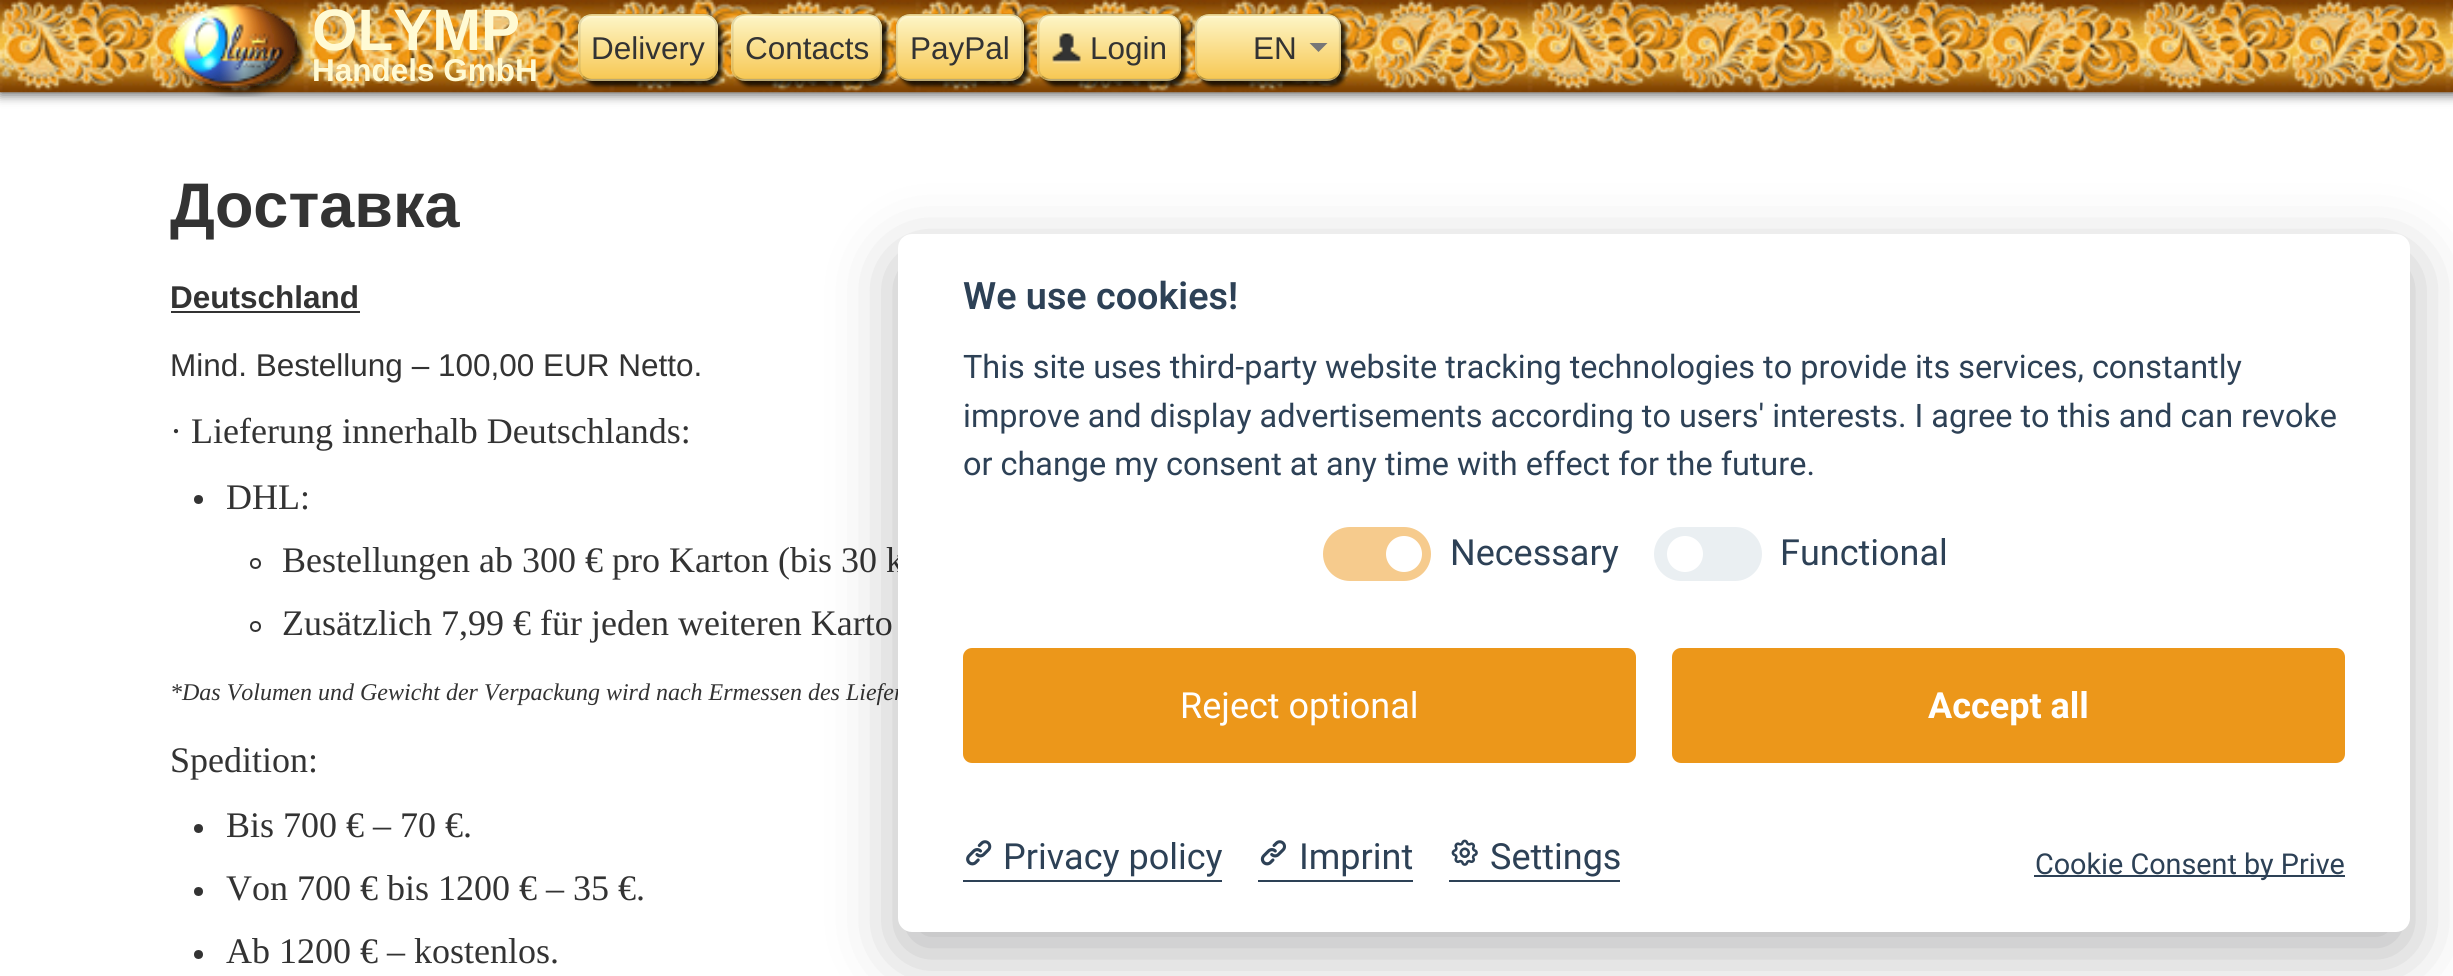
#include <cairo.h>
#include <math.h>
#include <stddef.h>

static cairo_t *c;
static void C(unsigned color){cairo_set_source_rgb(c, (color >> 16) / 255.0, (color >> 8 & 255) / 255.0, (color & 255) / 255.0);}
static void F(const char *family, double size, int italic, int bold){cairo_select_font_face(c, family, italic ? CAIRO_FONT_SLANT_ITALIC : CAIRO_FONT_SLANT_NORMAL,bold ? CAIRO_FONT_WEIGHT_BOLD : CAIRO_FONT_WEIGHT_NORMAL);cairo_set_font_size(c, size);}
static void T(double x, double y, const char *s){cairo_move_to(c, x, y);cairo_show_text(c, s);}
static void R(double x, double y, double w, double h){cairo_rectangle(c, x, y, w, h);cairo_fill(c);}
static void Q(double x, double y, double w, double h, double r){cairo_new_sub_path(c);cairo_arc(c, x + w - r, y + h - r, r, 0, M_PI / 2);cairo_arc(c, x + r, y + h - r, r, M_PI / 2, M_PI);cairo_arc(c, x + r, y + r, r, M_PI, 1.5 * M_PI);cairo_arc(c, x + w - r, y + r, r, 1.5 * M_PI, 2 * M_PI);cairo_close_path(c);}
static void S(double x, double y, double w, double h, double r, double blur, double alpha){cairo_push_group_with_content(c, CAIRO_CONTENT_ALPHA);cairo_set_operator(c, CAIRO_OPERATOR_SOURCE);for (int i = 15; i >= -15 && fmin(w, h) + blur * i / 3 > 0; i -= 2) {double e = blur * i / 6;cairo_set_source_rgba(c, 0, 0, 0, alpha * erfc((i - 1) / 8.5) / 2);Q(x - e, y - e, w + 2 * e, h + 2 * e, fmax(0, fmin(r + e + blur * .6, fmin(w, h) / 2 + e)));cairo_fill(c);}cairo_pattern_t *soft = cairo_pop_group(c);cairo_mask(c, soft);cairo_pattern_destroy(soft);}
static void I(const char *path, double x, double y, double w, double h){cairo_surface_t *image = cairo_image_surface_create_from_png(path);cairo_save(c);cairo_set_source_surface(c, image, x, y);cairo_rectangle(c, x, y, w, h);cairo_fill(c);cairo_restore(c);cairo_surface_destroy(image);}
int main(void) {
cairo_surface_t *surface = cairo_image_surface_create(CAIRO_FORMAT_RGB24, 2453, 976);
c = cairo_create(surface);
cairo_font_options_t *options = cairo_font_options_create();
cairo_font_options_set_hint_metrics(options, CAIRO_HINT_METRICS_OFF);
cairo_font_options_set_hint_style(options, CAIRO_HINT_STYLE_NONE);
cairo_set_font_options(c, options);
cairo_set_miter_limit(c, 4);
cairo_pattern_t *gradient;
C(0xffffff);
cairo_paint(c);
C(0x000000);
S(0,2,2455,93,0,5.5,.6);
I("1.png",0,0,2453,93);
I("2.png",168,3,142,94);
F("Liberation Sans",58.5,0,1);
C(0xfffad4);
T(312,50,"OLYMP");
F("Liberation Sans",31.5,0,1);
T(312,81,"Handels GmbH");
C(0x000000);
S(583,18,139,68,14,2,.8);
C(0xfbe398);
Q(578,14,140,67,14);
cairo_fill(c);
cairo_save(c);
Q(578,14,140,67,14);
cairo_clip(c);
gradient = cairo_pattern_create_linear(648,16,648,79);
cairo_pattern_add_color_stop_rgba(gradient,0,0.992,0.961,0.776,1);
cairo_pattern_add_color_stop_rgba(gradient,1,0.969,0.784,0.329,1);
cairo_set_source(c,gradient);
cairo_pattern_destroy(gradient);
R(578,16,140,63);
cairo_restore(c);
cairo_set_source_rgba(c,1,1,1,0.2);
cairo_new_path(c);
cairo_move_to(c,592,18);
cairo_line_to(c,704,18);
cairo_curve_to(c,710,18,716,23,716,29);
cairo_line_to(c,716,27);
cairo_curve_to(c,716,21,711,16,705,16);
cairo_line_to(c,592,16);
cairo_curve_to(c,587,16,583,19,581,24);
cairo_curve_to(c,584,21,588,18,592,18);
cairo_close_path(c);
cairo_fill(c);
cairo_new_path(c);
cairo_move_to(c,713,76.5);
cairo_curve_to(c,710.5,78.5,707.5,80,704,80);
cairo_line_to(c,592,80);
cairo_curve_to(c,588.5,80,585.5,78.5,583,76.5);
cairo_set_source_rgba(c,0,0,0,0.25);
cairo_set_line_width(c,2.2);
cairo_stroke(c);
cairo_new_path(c);
cairo_move_to(c,583,76.5);
cairo_curve_to(c,580.5,74,579.5,71,579.5,67.5);
cairo_line_to(c,579.5,27);
cairo_curve_to(c,579.5,23.5,580.5,20.5,583,18);
cairo_curve_to(c,585.5,16,588.5,14.5,592,14.5);
cairo_line_to(c,704,14.5);
cairo_curve_to(c,707.5,14.5,710.5,16,713,18);
cairo_curve_to(c,715.5,20.5,716.5,23.5,716.5,27);
cairo_line_to(c,716.5,67.5);
cairo_curve_to(c,716.5,71,715.5,74,713,76.5);
cairo_set_source_rgba(c,0,0,0,0.1);
cairo_stroke(c);
F("Liberation Sans",31.5,0,0);
C(0x333333);
T(591,59,"Delivery");
C(0x000000);
S(736,18,151,68,14,2,.8);
C(0xfbe398);
Q(731,14,151,67,14);
cairo_fill(c);
cairo_save(c);
Q(731,14,151,67,14);
cairo_clip(c);
gradient = cairo_pattern_create_linear(807,16,807,79);
cairo_pattern_add_color_stop_rgba(gradient,0,0.992,0.961,0.776,1);
cairo_pattern_add_color_stop_rgba(gradient,1,0.969,0.784,0.329,1);
cairo_set_source(c,gradient);
cairo_pattern_destroy(gradient);
R(731,16,151,63);
cairo_restore(c);
cairo_set_source_rgba(c,1,1,1,0.2);
cairo_new_path(c);
cairo_move_to(c,745,18);
cairo_line_to(c,868,18);
cairo_curve_to(c,875,18,880,23,880,29);
cairo_curve_to(c,880,11,861,16,848,16);
cairo_line_to(c,766,16);
cairo_curve_to(c,753,16,734,11,734,29);
cairo_curve_to(c,734,23,739,18,745,18);
cairo_close_path(c);
cairo_fill(c);
cairo_new_path(c);
cairo_move_to(c,877.5,76.5);
cairo_curve_to(c,875,78.5,872,80,868.5,80);
cairo_line_to(c,745,80);
cairo_curve_to(c,741.5,80,738.5,78.5,736,76.5);
cairo_set_source_rgba(c,0,0,0,0.25);
cairo_stroke(c);
cairo_new_path(c);
cairo_move_to(c,736,76.5);
cairo_curve_to(c,731.5,72,732.5,66.5,732.5,61);
cairo_line_to(c,732.5,24.5);
cairo_curve_to(c,735.5,10,756.5,14.5,765.5,14.5);
cairo_line_to(c,869.5,14.5);
cairo_curve_to(c,880.5,16,881,25,881,34);
cairo_line_to(c,881,61);
cairo_curve_to(c,881,66.5,881.5,72,877.5,76.5);
cairo_set_source_rgba(c,0,0,0,0.1);
cairo_stroke(c);
C(0x333333);
T(745,59,"Contacts");
C(0x000000);
S(900,18,128,68,14,2,.8);
C(0xfbe398);
Q(896,14,128,67,14);
cairo_fill(c);
cairo_save(c);
Q(896,14,128,67,14);
cairo_clip(c);
gradient = cairo_pattern_create_linear(960,16,960,79);
cairo_pattern_add_color_stop_rgba(gradient,0,0.992,0.961,0.776,1);
cairo_pattern_add_color_stop_rgba(gradient,1,0.969,0.784,0.329,1);
cairo_set_source(c,gradient);
cairo_pattern_destroy(gradient);
R(896,16,128,63);
cairo_restore(c);
cairo_set_source_rgba(c,1,1,1,0.2);
cairo_new_path(c);
cairo_move_to(c,909,18);
cairo_line_to(c,1010,18);
cairo_curve_to(c,1016,18,1022,23,1022,29);
cairo_curve_to(c,1022,12,1006,16,994,16);
cairo_line_to(c,926,16);
cairo_curve_to(c,914,16,898,12,898,29);
cairo_curve_to(c,898,23,903,18,909,18);
cairo_close_path(c);
cairo_fill(c);
cairo_new_path(c);
cairo_move_to(c,1019,76.5);
cairo_curve_to(c,1016.5,78.5,1013.5,80,1010,80);
cairo_line_to(c,909,80);
cairo_curve_to(c,905.5,80,902.5,78.5,900,76.5);
cairo_set_source_rgba(c,0,0,0,0.25);
cairo_stroke(c);
cairo_new_path(c);
cairo_move_to(c,900,76.5);
cairo_curve_to(c,898,74,896.5,71,896.5,67.5);
cairo_line_to(c,896.5,27);
cairo_curve_to(c,896.5,23.5,898,20.5,900,18);
cairo_curve_to(c,902.5,16,905.5,14.5,909,14.5);
cairo_line_to(c,1010,14.5);
cairo_curve_to(c,1013.5,14.5,1016.5,16,1019,18);
cairo_curve_to(c,1021.5,20.5,1022.5,23.5,1022.5,27);
cairo_line_to(c,1022.5,67.5);
cairo_curve_to(c,1022.5,71,1021.5,74,1019,76.5);
cairo_set_source_rgba(c,0,0,0,0.1);
cairo_stroke(c);
C(0x333333);
T(910,59,"PayPal");
C(0x000000);
S(1042,18,144,68,14,2,.8);
C(0xfbe398);
Q(1037,14,144,67,14);
cairo_fill(c);
cairo_save(c);
Q(1037,14,144,67,14);
cairo_clip(c);
gradient = cairo_pattern_create_linear(1109,16,1109,79);
cairo_pattern_add_color_stop_rgba(gradient,0,0.992,0.961,0.776,1);
cairo_pattern_add_color_stop_rgba(gradient,1,0.969,0.784,0.329,1);
cairo_set_source(c,gradient);
cairo_pattern_destroy(gradient);
R(1037,16,144,63);
cairo_restore(c);
cairo_set_source_rgba(c,1,1,1,0.2);
cairo_new_path(c);
cairo_move_to(c,1051,18);
cairo_line_to(c,1168,18);
cairo_curve_to(c,1174,18,1179,23,1179,29);
cairo_curve_to(c,1179,11,1161,16,1148,16);
cairo_line_to(c,1070,16);
cairo_curve_to(c,1058,16,1040,11,1040,29);
cairo_curve_to(c,1040,23,1045,18,1051,18);
cairo_close_path(c);
cairo_fill(c);
cairo_new_path(c);
cairo_move_to(c,1176.5,76.5);
cairo_curve_to(c,1174,78.5,1171,80,1168,80);
cairo_line_to(c,1051,80);
cairo_curve_to(c,1047.5,80,1044.5,78.5,1042,76.5);
cairo_set_source_rgba(c,0,0,0,0.25);
cairo_stroke(c);
cairo_new_path(c);
cairo_move_to(c,1042,76.5);
cairo_curve_to(c,1039.5,74,1038.5,71,1038.5,67.5);
cairo_line_to(c,1038.5,27);
cairo_curve_to(c,1038.5,23.5,1039.5,20.5,1042,18);
cairo_curve_to(c,1044.5,16,1047.5,14.5,1051,14.5);
cairo_line_to(c,1168,14.5);
cairo_curve_to(c,1171,14.5,1174,16,1176.5,18);
cairo_curve_to(c,1179,20.5,1180,23.5,1180,27);
cairo_line_to(c,1180,67.5);
cairo_curve_to(c,1180,71,1179,74,1176.5,76.5);
cairo_set_source_rgba(c,0,0,0,0.1);
cairo_stroke(c);
I("3.png",1052,33,29,31);
C(0x333333);
T(1090,59,"Login");
C(0x000000);
S(1199,18,147,68,14,2,.8);
C(0xfbe398);
Q(1195,14,146,67,14);
cairo_fill(c);
cairo_save(c);
Q(1195,14,146,67,14);
cairo_clip(c);
gradient = cairo_pattern_create_linear(1268,16,1268,79);
cairo_pattern_add_color_stop_rgba(gradient,0,0.992,0.961,0.776,1);
cairo_pattern_add_color_stop_rgba(gradient,1,0.969,0.784,0.329,1);
cairo_set_source(c,gradient);
cairo_pattern_destroy(gradient);
R(1195,16,146,63);
cairo_restore(c);
cairo_set_source_rgba(c,1,1,1,0.2);
cairo_new_path(c);
cairo_move_to(c,1208,18);
cairo_line_to(c,1328,18);
cairo_curve_to(c,1334,18,1339,23,1339,29);
cairo_curve_to(c,1339,11,1321,16,1308,16);
cairo_line_to(c,1228,16);
cairo_curve_to(c,1215,16,1197,11,1197,29);
cairo_curve_to(c,1197,23,1202,18,1208,18);
cairo_close_path(c);
cairo_fill(c);
cairo_new_path(c);
cairo_move_to(c,1336.5,76.5);
cairo_curve_to(c,1334,78.5,1331,80,1327.5,80);
cairo_line_to(c,1208,80);
cairo_curve_to(c,1205,80,1202,78.5,1199.5,76.5);
cairo_set_source_rgba(c,0,0,0,0.25);
cairo_stroke(c);
cairo_new_path(c);
cairo_move_to(c,1199.5,76.5);
cairo_curve_to(c,1197,74,1196,71,1196,67.5);
cairo_line_to(c,1196,27);
cairo_curve_to(c,1196,23.5,1197,20.5,1199.5,18);
cairo_curve_to(c,1202,16,1205,14.5,1208,14.5);
cairo_line_to(c,1327.5,14.5);
cairo_curve_to(c,1331,14.5,1334,16,1336.5,18);
cairo_curve_to(c,1338.5,20.5,1340,23.5,1340,27);
cairo_line_to(c,1340,67.5);
cairo_curve_to(c,1340,71,1338.5,74,1336.5,76.5);
cairo_set_source_rgba(c,0,0,0,0.1);
cairo_stroke(c);
C(0x333333);
T(1253,59,"EN");
C(0x777777);
cairo_new_path(c);
cairo_move_to(c,1309.5,43);
cairo_line_to(c,1327.5,43);
cairo_line_to(c,1318.5,52);
cairo_close_path(c);
cairo_fill(c);
F("Liberation Sans",63,0,1);
C(0x333333);
T(170,227,"Доставка");
F("Liberation Sans",31.5,0,1);
T(170,308,"Deutschland");
R(171,311,189,2);
F("Liberation Sans",31.5,0,0);
T(170,376,"Mind. Bestellung – 100,00 EUR Netto.");
F("Liberation Serif",36,0,0);
T(170,443,"· Lieferung innerhalb Deutschlands:");
cairo_new_path(c);
cairo_arc(c,198.5,499.5,4.5,0,2 * M_PI);
cairo_fill(c);
T(226,509,"DHL:");
cairo_new_path(c);
cairo_arc(c,255.5,563.5,4.5,0,2 * M_PI);
cairo_set_line_width(c,2);
cairo_stroke(c);
T(282,572,"Bestellungen ab 300 € pro Karton (bis 30 k");
cairo_new_path(c);
cairo_arc(c,255.5,626.5,4.5,0,2 * M_PI);
cairo_stroke(c);
T(282,635,"Zusätzlich 7,99 € für jeden weiteren Karto");
F("Liberation Serif",24,1,0);
T(170,700,"*Das Volumen und Gewicht der Verpackung wird nach Ermessen des Liefer");
F("Liberation Serif",36,0,0);
T(170,772,"Spedition:");
cairo_new_path(c);
cairo_arc(c,198.5,828.5,4.5,0,2 * M_PI);
cairo_fill(c);
T(226,837,"Bis 700 € – 70 €.");
cairo_new_path(c);
cairo_arc(c,198.5,891.5,4.5,0,2 * M_PI);
cairo_fill(c);
T(226,900,"Von 700 € bis 1200 € – 35 €.");
cairo_new_path(c);
cairo_arc(c,198.5,954.5,4.5,0,2 * M_PI);
cairo_fill(c);
T(226,963,"Ab 1200 € – kostenlos.");
C(0x020203);
S(898,257,1512,697,14,34,.28);
C(0xffffff);
Q(898,234,1512,698,14);
cairo_fill(c);
F("Roboto SemiBold",37.75,0,0);
C(0x2d4156);
T(963,309,"We use cookies!");
F("Roboto",32.4,0,0);
T(963,378,"This site uses third-party website tracking technologies to provide its services, constantly");
T(963,427,"improve and display advertisements according to users' interests. I agree to this and can revoke");
T(963,475,"or change my consent at any time with effect for the future.");
C(0xf6cb8d);
Q(1323,527,108,54,27);
cairo_fill(c);
C(0xffffff);
cairo_arc(c,1404,554,18,0,2 * M_PI);
cairo_fill(c);
F("Roboto",36,0,0);
C(0x2d4156);
T(1450,565,"Necessary");
C(0xeaeff2);
Q(1654,527,108,54,27);
cairo_fill(c);
C(0xffffff);
cairo_arc(c,1685,554,18,0,2 * M_PI);
cairo_fill(c);
C(0x2d4156);
T(1780,565,"Functional");
C(0xec971a);
Q(963,648,673,115,9);
cairo_fill(c);
C(0xffffff);
T(1180,718,"Reject optional");
C(0xec971a);
Q(1672,648,673,115,9);
cairo_fill(c);
F("Roboto",36,0,1);
C(0xffffff);
T(1928,718,"Accept all");
C(0x2d4156);
R(963,880,259,2);
I("4.png",966,840,26,26);
F("Roboto",36,0,0);
T(1003,869,"Privacy policy");
R(1258,880,155,2);
I("5.png",1260,840,26,26);
T(1299,869,"Imprint");
R(1449,880,171,2);
I("6.png",1451,839,27,27);
T(1490,869,"Settings");
R(2034,875,311,2);
F("Roboto",28.75,0,0);
T(2035,874,"Cookie Consent by Prive");
cairo_surface_write_to_png(surface, "o.png");
cairo_font_options_destroy(options);
cairo_destroy(c);
cairo_surface_destroy(surface);
return 0;
}
